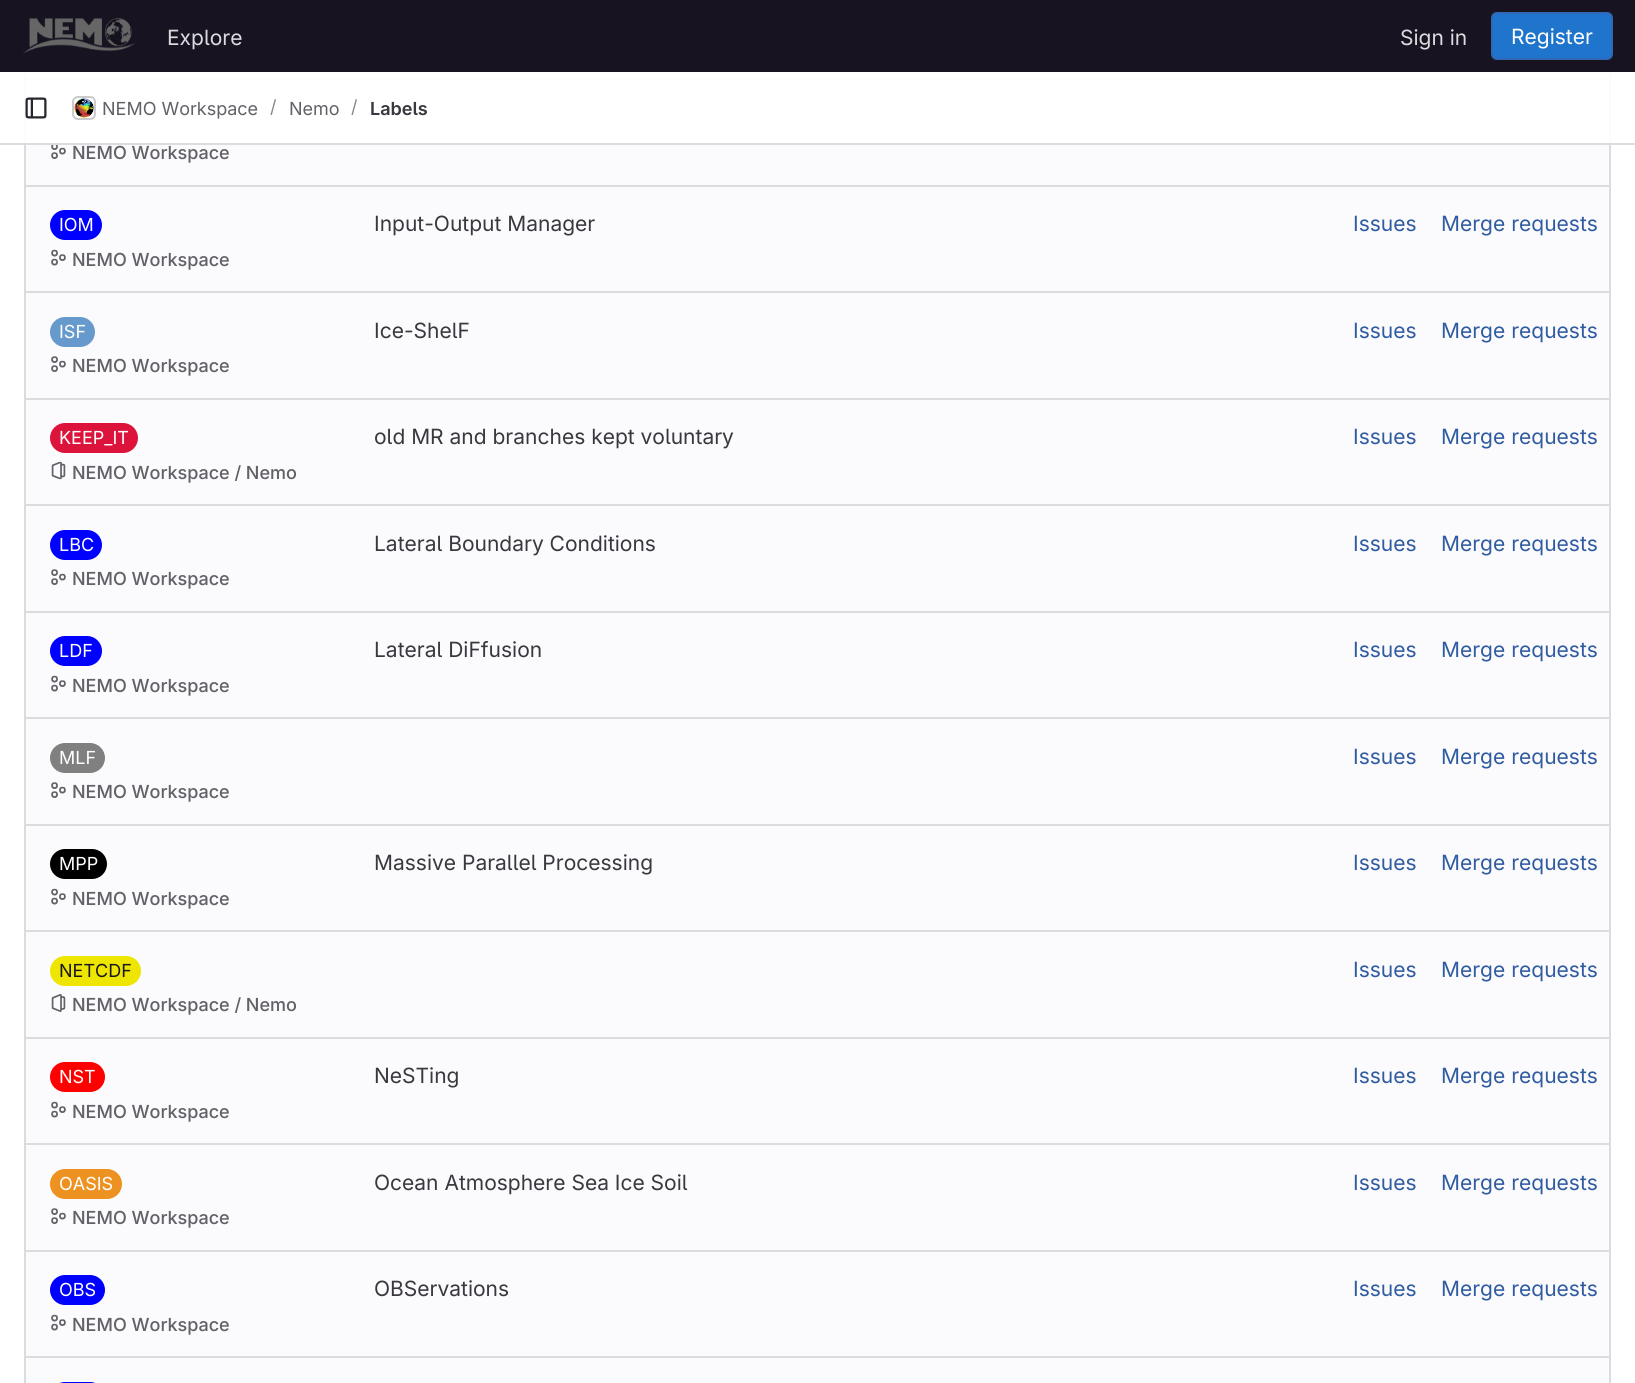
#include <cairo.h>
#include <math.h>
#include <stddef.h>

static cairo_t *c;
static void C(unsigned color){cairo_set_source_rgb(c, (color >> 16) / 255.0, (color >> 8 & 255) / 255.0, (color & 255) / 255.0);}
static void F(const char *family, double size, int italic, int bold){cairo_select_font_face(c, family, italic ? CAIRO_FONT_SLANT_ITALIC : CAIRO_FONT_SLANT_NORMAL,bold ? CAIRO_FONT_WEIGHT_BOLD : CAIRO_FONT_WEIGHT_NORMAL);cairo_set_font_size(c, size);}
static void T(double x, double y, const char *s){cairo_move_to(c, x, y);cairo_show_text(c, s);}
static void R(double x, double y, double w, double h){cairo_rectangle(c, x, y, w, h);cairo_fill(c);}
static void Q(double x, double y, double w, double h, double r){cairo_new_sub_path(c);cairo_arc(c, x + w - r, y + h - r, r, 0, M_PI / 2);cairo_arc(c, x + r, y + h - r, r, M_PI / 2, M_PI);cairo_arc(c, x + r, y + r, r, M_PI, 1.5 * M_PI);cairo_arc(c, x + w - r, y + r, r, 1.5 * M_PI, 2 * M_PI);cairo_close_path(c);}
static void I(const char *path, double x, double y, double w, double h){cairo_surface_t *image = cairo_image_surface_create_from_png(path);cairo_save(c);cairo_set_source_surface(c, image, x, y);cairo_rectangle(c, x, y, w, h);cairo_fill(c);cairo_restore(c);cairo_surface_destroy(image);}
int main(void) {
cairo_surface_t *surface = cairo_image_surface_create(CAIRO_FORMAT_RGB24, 1635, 1383);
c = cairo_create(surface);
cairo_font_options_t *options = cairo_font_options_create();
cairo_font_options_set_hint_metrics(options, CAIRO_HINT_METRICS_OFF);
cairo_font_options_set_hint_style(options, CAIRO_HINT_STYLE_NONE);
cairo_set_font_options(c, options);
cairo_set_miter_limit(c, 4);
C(0xffffff);
cairo_paint(c);
C(0xfbfafd);
R(26,72,1583,1311);
cairo_rectangle(c,25,-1,1585,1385);
C(0xdcdcde);
cairo_stroke(c);
C(0x171321);
R(0,0,1635,72);
I("1.png",22,18,114,36);
F("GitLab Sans",21,0,0);
C(0xdcdcde);
T(167,45,"Explore");
T(1400,45,"Sign in");
C(0x1f75cb);
Q(1492,13,120,46,5);
cairo_fill_preserve(c);
C(0x2f68b4);
cairo_stroke(c);
C(0xffffff);
T(1511,44,"Register");
C(0xdcdcde);
R(26,78,1584,2);
C(0xfffafa);
Q(50,104,46,30,15);
cairo_fill(c);
cairo_set_source_rgba(c,1,1,1,0.92);
R(24,72,1587,71);
C(0xdcdcde);
R(0,143,1635,2);
I("2.png",25,97,22,22);
Q(73,97,22,22,5);
cairo_stroke(c);
I("3.png",74,98,20,20);
Q(73,97,22,22,5);
cairo_set_source_rgba(c,0.02,0.02,0.024,0.08);
cairo_stroke(c);
F("GitLab Sans",18,0,0);
C(0x626168);
T(102,115,"NEMO Workspace");
C(0x89888d);
T(270,113,"/");
C(0x626168);
T(289,115,"Nemo");
C(0x89888d);
T(351,113,"/");
F("GitLab Sans SemiBold",18,0,0);
C(0x3a383f);
T(370,115,"Labels");
C(0xdcdcde);
R(26,185,1584,2);
I("4.png",51,145,15,14);
F("GitLab Sans Medium",18,0,0);
C(0x626168);
T(72,159,"NEMO Workspace");
C(0xdcdcde);
R(26,291,1584,2);
C(0x0000ff);
Q(50,210,52,30,15);
cairo_fill(c);
F("GitLab Sans",18,0,0);
C(0xffffff);
T(59,231,"IOM");
I("5.png",51,249,15,17);
F("GitLab Sans Medium",18,0,0);
C(0x626168);
T(72,266,"NEMO Workspace");
F("GitLab Sans",21,0,0);
C(0x3a383f);
T(374,231,"Input-Output Manager");
C(0x2f5ca0);
T(1353,231,"Issues");
T(1441,231,"Merge requests");
C(0xdcdcde);
R(26,398,1584,2);
C(0x6699cc);
Q(50,317,45,30,15);
cairo_fill(c);
F("GitLab Sans",18,0,0);
C(0xffffff);
T(59,338,"ISF");
I("6.png",51,356,15,16);
F("GitLab Sans Medium",18,0,0);
C(0x626168);
T(72,372,"NEMO Workspace");
F("GitLab Sans",21,0,0);
C(0x3a383f);
T(374,338,"Ice-ShelF");
C(0x2f5ca0);
T(1353,338,"Issues");
T(1441,338,"Merge requests");
C(0xdcdcde);
R(26,504,1584,2);
C(0xdc143c);
Q(50,423,88,30,15);
cairo_fill(c);
F("GitLab Sans",18,0,0);
C(0xffffff);
T(59,444,"KEEP_IT");
I("7.png",51,461,15,19);
F("GitLab Sans Medium",18,0,0);
C(0x626168);
T(72,479,"NEMO Workspace / Nemo");
F("GitLab Sans",21,0,0);
C(0x3a383f);
T(374,444,"old MR and branches kept voluntary");
C(0x2f5ca0);
T(1353,444,"Issues");
T(1441,444,"Merge requests");
C(0xdcdcde);
R(26,611,1584,2);
C(0x0000ff);
Q(50,530,52,30,15);
cairo_fill(c);
F("GitLab Sans",18,0,0);
C(0xffffff);
T(59,551,"LBC");
I("6.png",51,569,15,16);
F("GitLab Sans Medium",18,0,0);
C(0x626168);
T(72,585,"NEMO Workspace");
F("GitLab Sans",21,0,0);
C(0x3a383f);
T(374,551,"Lateral Boundary Conditions");
C(0x2f5ca0);
T(1353,551,"Issues");
T(1441,551,"Merge requests");
C(0xdcdcde);
R(26,717,1584,2);
C(0x0000ff);
Q(50,636,52,30,15);
cairo_fill(c);
F("GitLab Sans",18,0,0);
C(0xffffff);
T(59,657,"LDF");
I("5.png",51,675,15,17);
F("GitLab Sans Medium",18,0,0);
C(0x626168);
T(72,692,"NEMO Workspace");
F("GitLab Sans",21,0,0);
C(0x3a383f);
T(374,657,"Lateral DiFfusion");
C(0x2f5ca0);
T(1353,657,"Issues");
T(1441,657,"Merge requests");
C(0xdcdcde);
R(26,824,1584,2);
C(0x808080);
Q(50,743,55,30,15);
cairo_fill(c);
F("GitLab Sans",18,0,0);
C(0xffffff);
T(59,764,"MLF");
I("6.png",51,782,15,16);
F("GitLab Sans Medium",18,0,0);
C(0x626168);
T(72,798,"NEMO Workspace");
F("GitLab Sans",21,0,0);
C(0x2f5ca0);
T(1353,764,"Issues");
T(1441,764,"Merge requests");
C(0xdcdcde);
R(26,930,1584,2);
C(0x000000);
Q(50,849,57,30,15);
cairo_fill(c);
F("GitLab Sans",18,0,0);
C(0xffffff);
T(59,870,"MPP");
I("5.png",51,888,15,17);
F("GitLab Sans Medium",18,0,0);
C(0x626168);
T(72,905,"NEMO Workspace");
F("GitLab Sans",21,0,0);
C(0x3a383f);
T(374,870,"Massive Parallel Processing");
C(0x2f5ca0);
T(1353,870,"Issues");
T(1441,870,"Merge requests");
C(0xdcdcde);
R(26,1037,1584,2);
C(0xeee600);
Q(50,956,91,30,15);
cairo_fill(c);
F("GitLab Sans",18,0,0);
C(0x18171d);
T(59,977,"NETCDF");
I("8.png",51,994,15,18);
F("GitLab Sans Medium",18,0,0);
C(0x626168);
T(72,1011,"NEMO Workspace / Nemo");
F("GitLab Sans",21,0,0);
C(0x2f5ca0);
T(1353,977,"Issues");
T(1441,977,"Merge requests");
C(0xdcdcde);
R(26,1143,1584,2);
C(0xff0000);
Q(50,1062,55,30,15);
cairo_fill(c);
F("GitLab Sans",18,0,0);
C(0xffffff);
T(59,1083,"NST");
I("5.png",51,1101,15,17);
F("GitLab Sans Medium",18,0,0);
C(0x626168);
T(72,1118,"NEMO Workspace");
F("GitLab Sans",21,0,0);
C(0x3a383f);
T(374,1083,"NeSTing");
C(0x2f5ca0);
T(1353,1083,"Issues");
T(1441,1083,"Merge requests");
C(0xdcdcde);
R(26,1250,1584,2);
C(0xed9121);
Q(50,1169,72,30,15);
cairo_fill(c);
F("GitLab Sans",18,0,0);
C(0xffffff);
T(59,1190,"OASIS");
I("6.png",51,1208,15,16);
F("GitLab Sans Medium",18,0,0);
C(0x626168);
T(72,1224,"NEMO Workspace");
F("GitLab Sans",21,0,0);
C(0x3a383f);
T(374,1190,"Ocean Atmosphere Sea Ice Soil");
C(0x2f5ca0);
T(1353,1190,"Issues");
T(1441,1190,"Merge requests");
C(0xdcdcde);
R(26,1356,1584,2);
C(0x0000ff);
Q(50,1275,55,30,15);
cairo_fill(c);
F("GitLab Sans",18,0,0);
C(0xffffff);
T(59,1296,"OBS");
I("9.png",51,1314,15,17);
F("GitLab Sans Medium",18,0,0);
C(0x626168);
T(72,1331,"NEMO Workspace");
F("GitLab Sans",21,0,0);
C(0x3a383f);
T(374,1296,"OBServations");
C(0x2f5ca0);
T(1353,1296,"Issues");
T(1441,1296,"Merge requests");
C(0x0000ff);
Q(50,1382,55,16,15);
cairo_fill(c);
cairo_surface_write_to_png(surface, "o.png");
cairo_font_options_destroy(options);
cairo_destroy(c);
cairo_surface_destroy(surface);
return 0;
}
